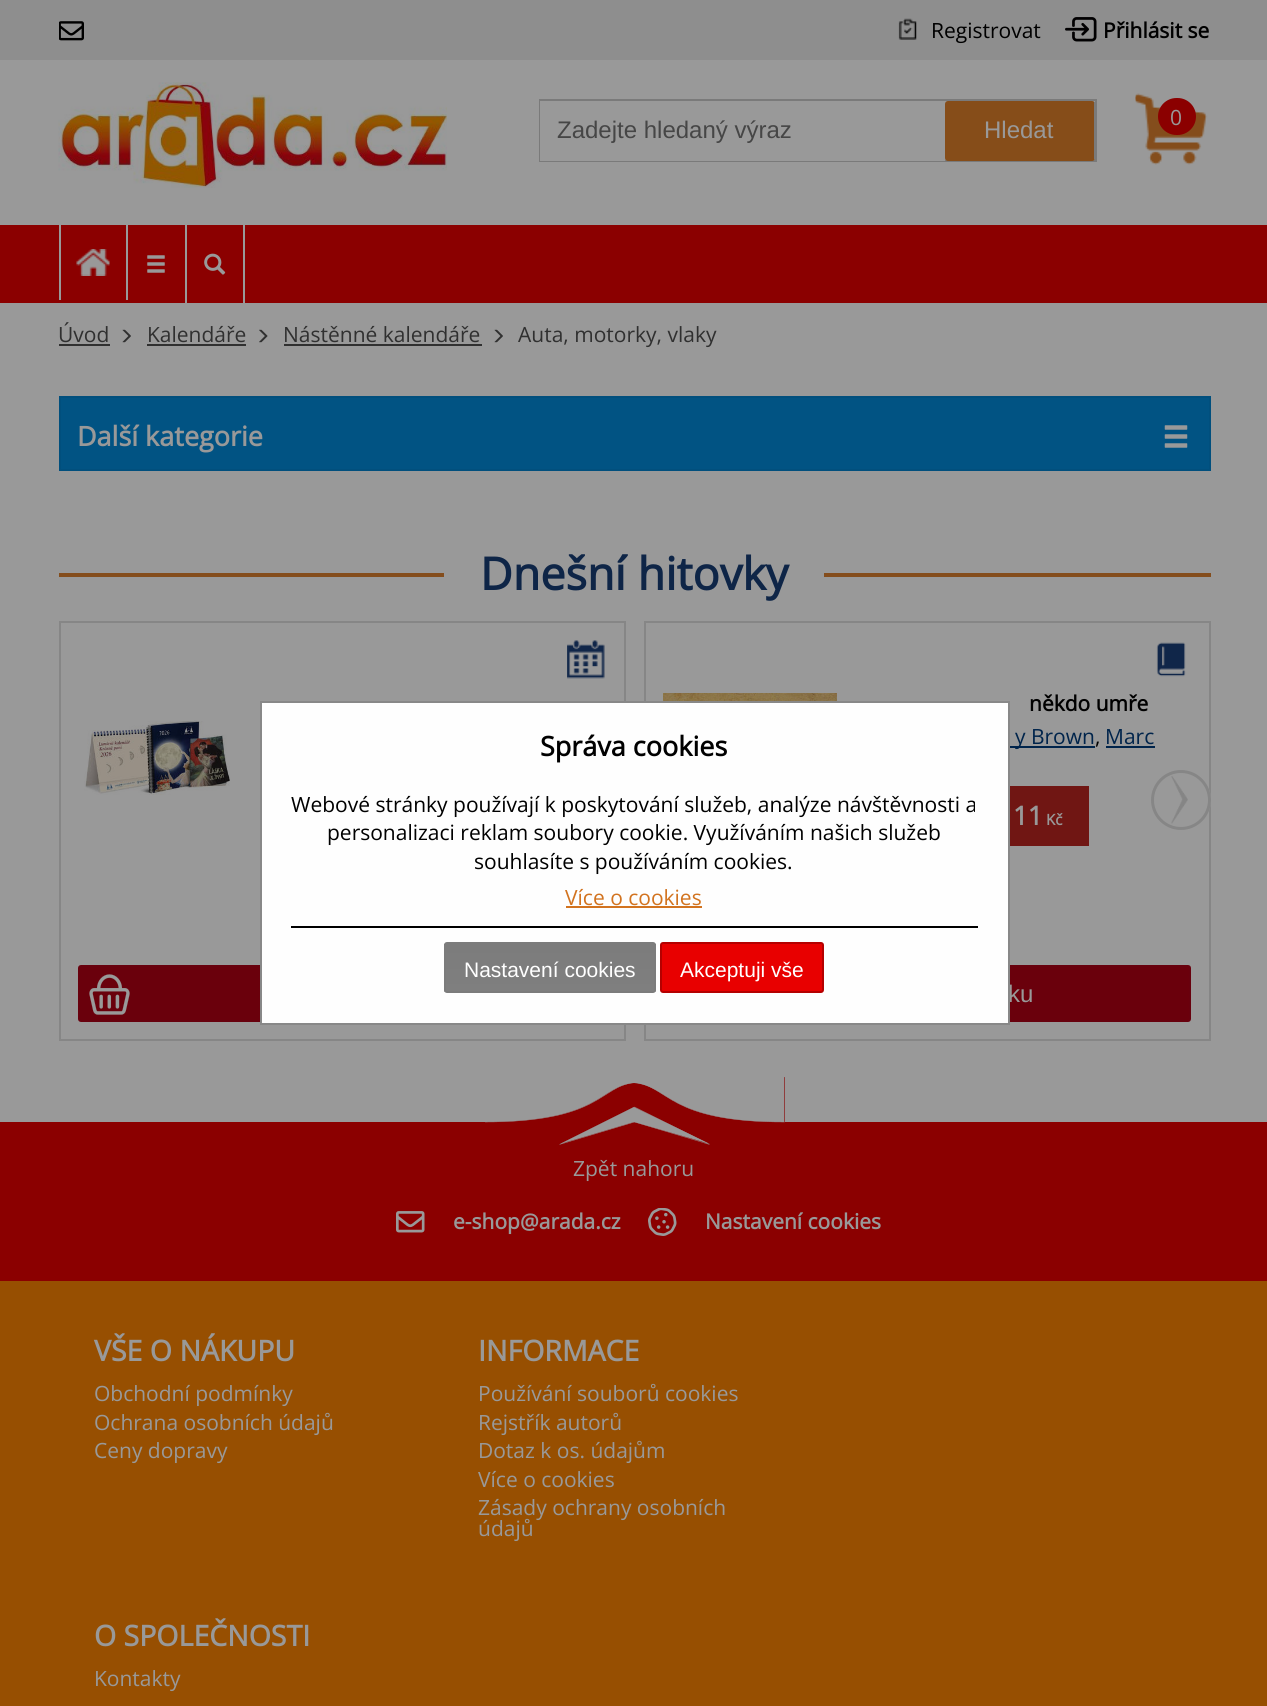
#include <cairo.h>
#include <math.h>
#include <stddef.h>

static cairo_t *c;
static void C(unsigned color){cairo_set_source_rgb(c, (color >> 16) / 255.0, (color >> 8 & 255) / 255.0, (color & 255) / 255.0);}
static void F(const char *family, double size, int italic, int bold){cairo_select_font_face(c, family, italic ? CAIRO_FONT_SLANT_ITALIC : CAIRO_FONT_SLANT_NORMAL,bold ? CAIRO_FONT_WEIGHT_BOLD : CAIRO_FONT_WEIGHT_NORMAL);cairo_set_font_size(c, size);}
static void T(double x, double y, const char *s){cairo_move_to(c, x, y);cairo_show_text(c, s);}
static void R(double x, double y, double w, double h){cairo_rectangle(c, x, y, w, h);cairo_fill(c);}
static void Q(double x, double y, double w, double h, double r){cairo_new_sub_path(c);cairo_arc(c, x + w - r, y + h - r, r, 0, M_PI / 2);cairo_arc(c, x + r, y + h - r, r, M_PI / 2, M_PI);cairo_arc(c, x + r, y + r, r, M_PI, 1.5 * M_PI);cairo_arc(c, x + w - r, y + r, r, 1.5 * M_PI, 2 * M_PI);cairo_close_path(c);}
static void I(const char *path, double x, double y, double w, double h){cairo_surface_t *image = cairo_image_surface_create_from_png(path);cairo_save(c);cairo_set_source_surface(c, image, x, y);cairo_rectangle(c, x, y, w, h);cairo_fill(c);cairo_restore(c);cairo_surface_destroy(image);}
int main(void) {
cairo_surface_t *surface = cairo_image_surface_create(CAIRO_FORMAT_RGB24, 1267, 1706);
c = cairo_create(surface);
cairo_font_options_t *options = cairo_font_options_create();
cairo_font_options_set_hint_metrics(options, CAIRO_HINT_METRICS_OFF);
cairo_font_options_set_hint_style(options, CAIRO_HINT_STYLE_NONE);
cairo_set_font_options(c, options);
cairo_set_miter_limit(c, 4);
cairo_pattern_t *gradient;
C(0x999999);
cairo_paint(c);
C(0x8e8e8e);
R(0,0,1267,60);
I("1.png",59,21,25,20);
I("2.png",898,18,19,22);
F("Open Sans",21,0,0);
C(0x000000);
T(931,38,"Registrovat");
I("3.png",1065,17,32,25);
F("Open Sans",21,0,1);
T(1103,38,"Přihlásit se");
I("4.png",58,82,389,106);
I("5.png",1135,93,73,72);
C(0x8b0000);
Q(1158,98,38,37,18.5);
cairo_fill(c);
F("Open Sans",21,0,0);
C(0x999999);
T(1170,125,"0");
cairo_rectangle(c,540,100,556,61);
C(0x7a7a7a);
cairo_stroke(c);
C(0x999999);
R(540,101,405,60);
F("Liberation Sans",24,0,0);
C(0x464646);
T(557,138,"Zadejte hledaný výraz");
C(0x864d19);
Q(945,101,150,60,3);
cairo_fill(c);
C(0x7a7a7a);
R(1094,102,1,57);
C(0x999999);
T(984,138,"Hledat");
C(0x8b0000);
R(0,225,1267,78);
C(0x999999);
R(126,225,2,75);
R(59,225,2,75);
I("6.png",76,249,34,27);
R(185,225,2,78);
I("7.png",147,255,18,18);
R(243,225,2,78);
I("8.png",204,253,22,22);
F("Open Sans",21,0,0);
C(0x303030);
T(58,342,"Úvod");
R(59,344,51,2);
I("9.png",122,329,9,14);
T(147,342,"Kalendáře");
R(147,344,99,2);
I("10.png",259,329,9,14);
T(283,342,"Nástěnné kalendáře");
R(284,344,198,2);
I("9.png",494,329,9,14);
T(518,342,"Auta, motorky, vlaky");
C(0x015383);
cairo_rectangle(c,60,397,1150,73);
cairo_fill_preserve(c);
C(0x014f7d);
cairo_stroke(c);
F("Open Sans",27,0,1);
C(0x999999);
T(77,446,"Další kategorie");
I("11.png",1164,425,24,23);
C(0x844d1c);
R(59,573,1152,4);
C(0x999999);
R(444,573,380,4);
F("Open Sans",45,0,1);
C(0x0e2547);
T(480,590,"Dnešní hitovky");
cairo_rectangle(c,60,622,565,418);
C(0x868686);
cairo_stroke(c);
I("12.png",567,640,38,39);
I("13.png",84,720,146,75);
C(0x6a000c);
Q(79,966,526,55,2);
cairo_fill_preserve(c);
C(0x68010e);
cairo_stroke(c);
I("14.png",89,974,41,41);
cairo_rectangle(c,645,622,565,418);
C(0x868686);
cairo_stroke(c);
I("15.png",1156,642,30,35);
I("16.png",663,693,174,8);
F("Open Sans",21,0,1);
C(0x000000);
T(1029,711,"někdo umře");
C(0x00244b);
R(1010,746,85,2);
F("Open Sans",21,0,0);
T(1015,744,"y Brown");
C(0x000000);
T(1095,744,",");
C(0x00244b);
T(1105,744,"Marc");
R(1106,746,49,2);
C(0x701613);
R(1010,786,79,60);
F("Open Sans",26,0,1);
C(0x999999);
T(1013,825,"11");
F("Open Sans",15,0,1);
T(1046,825,"Kč");
C(0x6a000c);
Q(664,966,526,55,2);
cairo_fill_preserve(c);
C(0x68010e);
cairo_stroke(c);
F("Liberation Sans",24,0,0);
C(0x999999);
T(1008,1002,"ku");
cairo_new_path(c);
cairo_arc(c,1181,800,30,0,2 * M_PI);
cairo_fill(c);
I("17.png",1171,776,17,48);
cairo_arc(c,1181,800,28.5,0,2 * M_PI);
C(0x868686);
cairo_set_line_width(c,3);
cairo_stroke(c);
C(0xfefefe);
cairo_rectangle(c,261,702,748,322);
cairo_fill_preserve(c);
C(0x888888);
cairo_set_line_width(c,2);
cairo_stroke(c);
F("Open Sans",27,0,1);
C(0x000000);
T(540,756,"Správa cookies");
F("Open Sans",21,0,0);
T(291,812,"Webové stránky používají k poskytování služeb, analýze návštěvnosti a");
T(327,840,"personalizaci reklam soubory cookie. Využíváním našich služeb");
T(474,869,"souhlasíte s používáním cookies.");
C(0xd2731f);
T(565,905,"Více o cookies");
R(566,906,136,2);
C(0x000000);
R(291,926,687,2);
cairo_save(c);
Q(444,942,212,51,3);
cairo_clip(c);
gradient = cairo_pattern_create_linear(550,944,550,992);
cairo_pattern_add_color_stop_rgba(gradient,0,0.486,0.486,0.486,1);
cairo_pattern_add_color_stop_rgba(gradient,1,0.498,0.498,0.498,1);
cairo_set_source(c,gradient);
cairo_pattern_destroy(gradient);
R(444,944,212,48);
cairo_restore(c);
Q(445,943,210,49,2);
C(0x7c7c7c);
cairo_stroke(c);
F("Liberation Sans",21,0,0);
C(0xffffff);
T(464,977,"Nastavení cookies");
C(0xe80000);
Q(661,943,162,49,2);
cairo_fill_preserve(c);
C(0xb50000);
cairo_stroke(c);
C(0xffffff);
T(680,977,"Akceptuji vše");
C(0x974f01);
R(0,1281,1267,425);
C(0x8b0000);
R(0,1122,1267,159);
R(485,1077,300,45);
cairo_save(c);
cairo_rectangle(c,485,1077,300,72);
cairo_clip(c);
C(0x999999);
cairo_new_path(c);
cairo_move_to(c,484,1122);
cairo_curve_to(c,602,1122,599,1086,634,1083);
cairo_curve_to(c,670,1086,667,1122,784,1122);
cairo_line_to(c,784,1077);
cairo_line_to(c,484,1077);
cairo_close_path(c);
cairo_fill(c);
cairo_new_path(c);
cairo_move_to(c,484.5,1122);
cairo_curve_to(c,602,1122,599,1086.5,634.5,1082.5);
cairo_curve_to(c,670,1086.5,667,1122,784.5,1122);
cairo_line_to(c,784.5,1077);
cairo_line_to(c,484.5,1077);
cairo_close_path(c);
cairo_set_line_width(c,.4);
cairo_stroke(c);
cairo_restore(c);
C(0x999999);
cairo_new_path(c);
cairo_move_to(c,560,1144);
cairo_line_to(c,634,1107);
cairo_line_to(c,710,1144);
cairo_line_to(c,634,1122);
cairo_close_path(c);
cairo_fill(c);
cairo_new_path(c);
cairo_move_to(c,559.5,1144.5);
cairo_line_to(c,634.5,1107);
cairo_line_to(c,709.5,1144.5);
cairo_line_to(c,634.5,1122);
cairo_close_path(c);
cairo_set_line_width(c,.4);
cairo_stroke(c);
F("Open Sans",21,0,0);
T(573,1176,"Zpět nahoru");
I("18.png",396,1211,29,22);
F("Open Sans",21,0,1);
T(453,1229,"e-shop@arada.cz");
I("19.png",648,1208,29,28);
T(705,1229,"Nastavení cookies");
F("Open Sans",28.5,0,1);
T(94,1361,"VŠE O NÁKUPU");
F("Open Sans",21,0,0);
T(94,1401,"Obchodní podmínky");
T(94,1430,"Ochrana osobních údajů");
T(94,1458,"Ceny dopravy");
F("Open Sans",28.5,0,1);
T(478,1361,"INFORMACE");
F("Open Sans",21,0,0);
T(478,1401,"Používání souborů cookies");
T(478,1430,"Rejstřík autorů");
T(478,1458,"Dotaz k os. údajům");
T(478,1487,"Více o cookies");
T(478,1515,"Zásady ochrany osobních");
T(478,1536,"údajů");
F("Open Sans",28.5,0,1);
T(94,1646,"O SPOLEČNOSTI");
F("Open Sans",21,0,0);
T(94,1686,"Kontakty");
cairo_surface_write_to_png(surface, "o.png");
cairo_font_options_destroy(options);
cairo_destroy(c);
cairo_surface_destroy(surface);
return 0;
}
